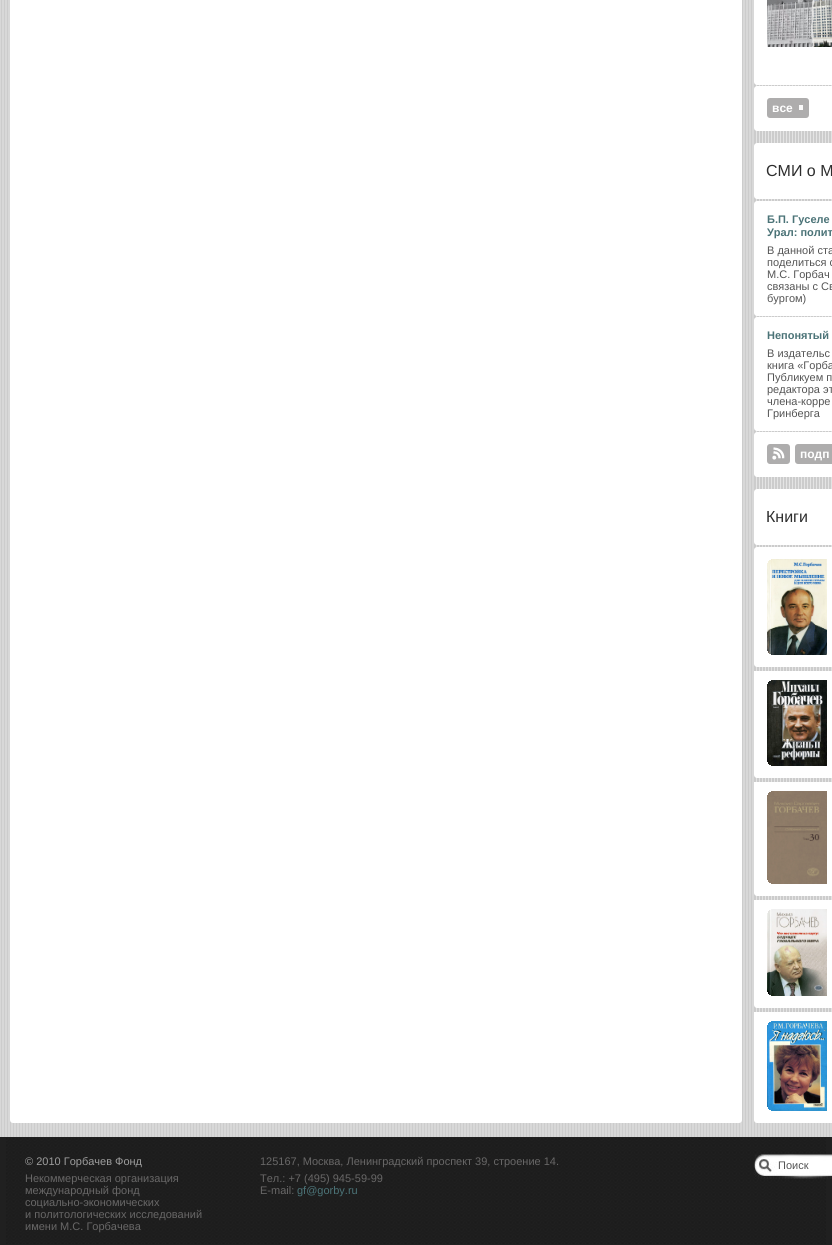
#include <cairo.h>
#include <math.h>
#include <stddef.h>

static cairo_t *c;
static void C(unsigned color){cairo_set_source_rgb(c, (color >> 16) / 255.0, (color >> 8 & 255) / 255.0, (color & 255) / 255.0);}
static void F(const char *family, double size, int italic, int bold){cairo_select_font_face(c, family, italic ? CAIRO_FONT_SLANT_ITALIC : CAIRO_FONT_SLANT_NORMAL,bold ? CAIRO_FONT_WEIGHT_BOLD : CAIRO_FONT_WEIGHT_NORMAL);cairo_set_font_size(c, size);}
static void T(double x, double y, const char *s){cairo_move_to(c, x, y);cairo_show_text(c, s);}
static void R(double x, double y, double w, double h){cairo_rectangle(c, x, y, w, h);cairo_fill(c);}
static void Q(double x, double y, double w, double h, double r){cairo_new_sub_path(c);cairo_arc(c, x + w - r, y + h - r, r, 0, M_PI / 2);cairo_arc(c, x + r, y + h - r, r, M_PI / 2, M_PI);cairo_arc(c, x + r, y + r, r, M_PI, 1.5 * M_PI);cairo_arc(c, x + w - r, y + r, r, 1.5 * M_PI, 2 * M_PI);cairo_close_path(c);}
static void I(const char *path, double x, double y, double w, double h){cairo_surface_t *image = cairo_image_surface_create_from_png(path);cairo_save(c);cairo_set_source_surface(c, image, x, y);cairo_rectangle(c, x, y, w, h);cairo_fill(c);cairo_restore(c);cairo_surface_destroy(image);}
int main(void) {
cairo_surface_t *surface = cairo_image_surface_create(CAIRO_FORMAT_RGB24, 832, 1245);
c = cairo_create(surface);
cairo_font_options_t *options = cairo_font_options_create();
cairo_font_options_set_hint_metrics(options, CAIRO_HINT_METRICS_OFF);
cairo_font_options_set_hint_style(options, CAIRO_HINT_STYLE_NONE);
cairo_set_font_options(c, options);
cairo_set_miter_limit(c, 4);
C(0xffffff);
cairo_paint(c);
I("1.png",0,0,832,1137);
C(0xffffff);
Q(10,-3,732,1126,3);
cairo_fill(c);
Q(754,-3,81,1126,3);
cairo_fill(c);
I("2.png",767,0,65,47);
C(0xe4e4e4);
R(831,85,1,1);
I("3.png",754,82,77,7);
C(0xffffff);
cairo_new_path(c);
cairo_move_to(c,754,82);
cairo_line_to(c,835,82);
cairo_curve_to(c,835,83.5,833.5,85,832,85);
cairo_line_to(c,757,85);
cairo_curve_to(c,755.5,85,754,83.5,754,82);
cairo_close_path(c);
cairo_fill(c);
cairo_new_path(c);
cairo_move_to(c,757,86);
cairo_line_to(c,832,86);
cairo_curve_to(c,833.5,86,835,87.5,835,89);
cairo_line_to(c,754,89);
cairo_curve_to(c,754,87.5,755.5,86,757,86);
cairo_close_path(c);
cairo_fill(c);
C(0xaeadad);
Q(767,98,42,20,3);
cairo_fill(c);
C(0xfafafa);
R(799,105,4,5);
F("Liberation Sans",12,0,1);
C(0xffffff);
T(772,112,"все");
C(0xe4e4e4);
R(831,131,1,12);
I("4.png",754,128,77,18);
C(0xffffff);
cairo_new_path(c);
cairo_move_to(c,754,128);
cairo_line_to(c,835,128);
cairo_curve_to(c,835,129.5,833.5,131,832,131);
cairo_line_to(c,757,131);
cairo_curve_to(c,755.5,131,754,129.5,754,128);
cairo_close_path(c);
cairo_fill(c);
cairo_new_path(c);
cairo_move_to(c,757,143);
cairo_line_to(c,832,143);
cairo_curve_to(c,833.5,143,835,144.5,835,146);
cairo_line_to(c,754,146);
cairo_curve_to(c,754,144.5,755.5,143,757,143);
cairo_close_path(c);
cairo_fill(c);
F("Liberation Sans",16,0,0);
C(0x2e2e2e);
T(766,176,"СМИ о М");
C(0xe4e4e4);
R(831,199,1,2);
I("5.png",754,196,77,8);
C(0xffffff);
cairo_new_path(c);
cairo_move_to(c,754,196);
cairo_line_to(c,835,196);
cairo_curve_to(c,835,197.5,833.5,199,832,199);
cairo_line_to(c,757,199);
cairo_curve_to(c,755.5,199,754,197.5,754,196);
cairo_close_path(c);
cairo_fill(c);
cairo_new_path(c);
cairo_move_to(c,757,201);
cairo_line_to(c,832,201);
cairo_curve_to(c,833.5,201,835,202.5,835,204);
cairo_line_to(c,754,204);
cairo_curve_to(c,754,202.5,755.5,201,757,201);
cairo_close_path(c);
cairo_fill(c);
F("Liberation Sans",11,0,1);
C(0x4b7377);
T(767,223,"Б.П. Гуселе");
T(767,236,"Урал: полит");
F("Liberation Sans",11,0,0);
C(0x545454);
T(767,254,"В данной ста");
T(767,266,"поделиться с");
T(767,278,"М.С. Горбач");
T(767,290,"связаны с Св");
T(767,302,"бургом)");
C(0xe4e4e4);
R(831,316,1,1);
I("3.png",754,313,77,7);
C(0xffffff);
cairo_new_path(c);
cairo_move_to(c,754,313);
cairo_line_to(c,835,313);
cairo_curve_to(c,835,314.5,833.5,316,832,316);
cairo_line_to(c,757,316);
cairo_curve_to(c,755.5,316,754,314.5,754,313);
cairo_close_path(c);
cairo_fill(c);
cairo_new_path(c);
cairo_move_to(c,757,317);
cairo_line_to(c,832,317);
cairo_curve_to(c,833.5,317,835,318.5,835,320);
cairo_line_to(c,754,320);
cairo_curve_to(c,754,318.5,755.5,317,757,317);
cairo_close_path(c);
cairo_fill(c);
F("Liberation Sans",11,0,1);
C(0x4b7377);
T(767,339,"Непонятый");
F("Liberation Sans",11,0,0);
C(0x545454);
T(767,357,"В издательс");
T(767,369,"книга «Горба");
T(767,381,"Публикуем п");
T(767,393,"редактора эт");
T(767,405,"члена-корре");
T(767,417,"Гринберга");
C(0xe4e4e4);
R(831,431,1,1);
I("3.png",754,428,77,7);
C(0xffffff);
cairo_new_path(c);
cairo_move_to(c,754,428);
cairo_line_to(c,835,428);
cairo_curve_to(c,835,429.5,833.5,431,832,431);
cairo_line_to(c,757,431);
cairo_curve_to(c,755.5,431,754,429.5,754,428);
cairo_close_path(c);
cairo_fill(c);
cairo_new_path(c);
cairo_move_to(c,757,432);
cairo_line_to(c,832,432);
cairo_curve_to(c,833.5,432,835,433.5,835,435);
cairo_line_to(c,754,435);
cairo_curve_to(c,754,433.5,755.5,432,757,432);
cairo_close_path(c);
cairo_fill(c);
C(0xaeadad);
Q(767,444,23,20,3);
cairo_fill(c);
I("6.png",772,447,13,13);
Q(795,444,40,20,3);
cairo_fill(c);
F("Liberation Sans",12,0,1);
C(0xffffff);
T(800,458,"подп");
C(0xe4e4e4);
R(831,477,1,12);
I("4.png",754,474,77,18);
C(0xffffff);
cairo_new_path(c);
cairo_move_to(c,754,474);
cairo_line_to(c,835,474);
cairo_curve_to(c,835,475.5,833.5,477,832,477);
cairo_line_to(c,757,477);
cairo_curve_to(c,755.5,477,754,475.5,754,474);
cairo_close_path(c);
cairo_fill(c);
cairo_new_path(c);
cairo_move_to(c,757,489);
cairo_line_to(c,832,489);
cairo_curve_to(c,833.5,489,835,490.5,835,492);
cairo_line_to(c,754,492);
cairo_curve_to(c,754,490.5,755.5,489,757,489);
cairo_close_path(c);
cairo_fill(c);
F("Liberation Sans",16,0,0);
C(0x2e2e2e);
T(766,522,"Книги");
C(0xe4e4e4);
R(831,545,1,2);
I("5.png",754,542,77,8);
C(0xffffff);
cairo_new_path(c);
cairo_move_to(c,754,542);
cairo_line_to(c,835,542);
cairo_curve_to(c,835,543.5,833.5,545,832,545);
cairo_line_to(c,757,545);
cairo_curve_to(c,755.5,545,754,543.5,754,542);
cairo_close_path(c);
cairo_fill(c);
cairo_new_path(c);
cairo_move_to(c,757,547);
cairo_line_to(c,832,547);
cairo_curve_to(c,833.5,547,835,548.5,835,550);
cairo_line_to(c,754,550);
cairo_curve_to(c,754,548.5,755.5,547,757,547);
cairo_close_path(c);
cairo_fill(c);
I("7.png",767,559,60,96);
I("8.png",767,559,4,4);
I("9.png",767,651,4,4);
C(0xe4e4e4);
R(831,667,1,4);
I("3.png",754,664,77,7);
C(0xffffff);
cairo_new_path(c);
cairo_move_to(c,754,664);
cairo_line_to(c,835,664);
cairo_curve_to(c,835,665.5,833.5,667,832,667);
cairo_line_to(c,757,667);
cairo_curve_to(c,755.5,667,754,665.5,754,664);
cairo_close_path(c);
cairo_fill(c);
I("10.png",767,680,60,86);
I("11.png",767,680,4,4);
I("12.png",767,762,4,4);
C(0xe4e4e4);
R(831,778,1,4);
I("3.png",754,775,77,7);
C(0xffffff);
cairo_new_path(c);
cairo_move_to(c,754,775);
cairo_line_to(c,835,775);
cairo_curve_to(c,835,776.5,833.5,778,832,778);
cairo_line_to(c,757,778);
cairo_curve_to(c,755.5,778,754,776.5,754,775);
cairo_close_path(c);
cairo_fill(c);
I("13.png",767,791,60,93);
I("14.png",767,791,4,4);
I("15.png",767,880,4,4);
C(0xe4e4e4);
R(831,896,1,4);
I("3.png",754,893,77,7);
C(0xffffff);
cairo_new_path(c);
cairo_move_to(c,754,893);
cairo_line_to(c,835,893);
cairo_curve_to(c,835,894.5,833.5,896,832,896);
cairo_line_to(c,757,896);
cairo_curve_to(c,755.5,896,754,894.5,754,893);
cairo_close_path(c);
cairo_fill(c);
I("16.png",767,909,60,87);
I("17.png",767,909,4,4);
I("18.png",767,992,4,4);
C(0xe4e4e4);
R(831,1008,1,4);
I("3.png",754,1005,77,7);
C(0xffffff);
cairo_new_path(c);
cairo_move_to(c,754,1005);
cairo_line_to(c,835,1005);
cairo_curve_to(c,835,1006.5,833.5,1008,832,1008);
cairo_line_to(c,757,1008);
cairo_curve_to(c,755.5,1008,754,1006.5,754,1005);
cairo_close_path(c);
cairo_fill(c);
I("19.png",767,1021,60,90);
I("20.png",767,1021,4,4);
I("21.png",767,1107,4,4);
C(0x202020);
R(0,1137,832,108);
I("22.png",6,1138,820,106);
F("Liberation Sans",11,0,0);
C(0x9e9e9e);
T(25,1165,"© 2010 Горбачев Фонд");
C(0x686767);
T(25,1182,"Некоммерческая организация");
T(25,1194,"международный фонд");
T(25,1206,"социально-экономических");
T(25,1218,"и политологических исследований");
T(25,1230,"имени М.С. Горбачева");
T(260,1165,"125167, Москва, Ленинградский проспект 39, строение 14.");
T(260,1182,"Тел.: +7 (495) 945-59-99");
T(260,1194,"E-mail:");
C(0x4b7377);
T(297,1194,"gf@gorby.ru");
I("23.png",754,1154,78,25);
C(0x545454);
T(778,1169,"Поиск");
cairo_surface_write_to_png(surface, "o.png");
cairo_font_options_destroy(options);
cairo_destroy(c);
cairo_surface_destroy(surface);
return 0;
}
